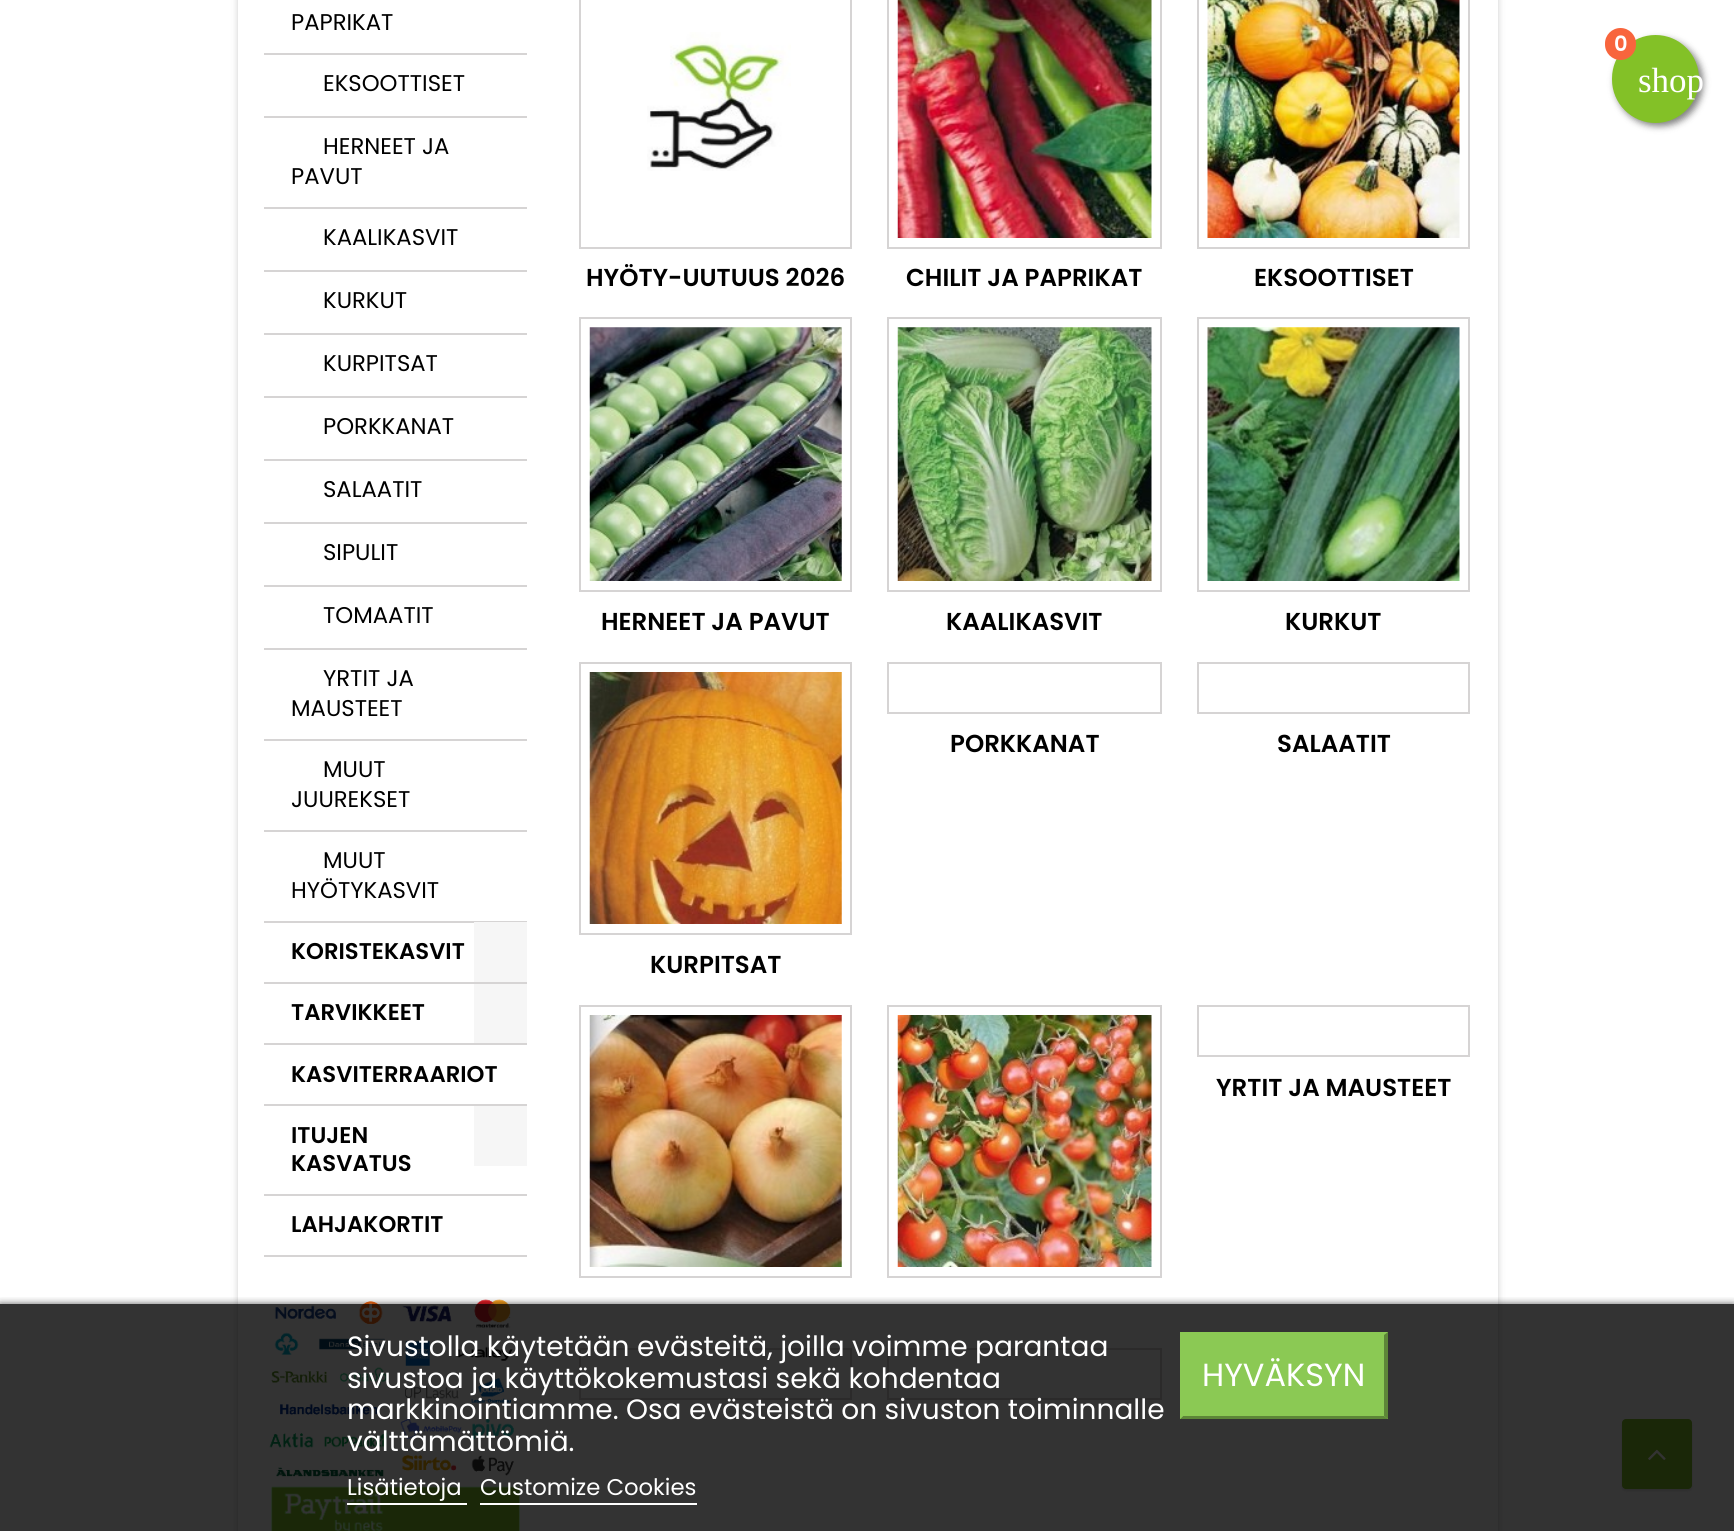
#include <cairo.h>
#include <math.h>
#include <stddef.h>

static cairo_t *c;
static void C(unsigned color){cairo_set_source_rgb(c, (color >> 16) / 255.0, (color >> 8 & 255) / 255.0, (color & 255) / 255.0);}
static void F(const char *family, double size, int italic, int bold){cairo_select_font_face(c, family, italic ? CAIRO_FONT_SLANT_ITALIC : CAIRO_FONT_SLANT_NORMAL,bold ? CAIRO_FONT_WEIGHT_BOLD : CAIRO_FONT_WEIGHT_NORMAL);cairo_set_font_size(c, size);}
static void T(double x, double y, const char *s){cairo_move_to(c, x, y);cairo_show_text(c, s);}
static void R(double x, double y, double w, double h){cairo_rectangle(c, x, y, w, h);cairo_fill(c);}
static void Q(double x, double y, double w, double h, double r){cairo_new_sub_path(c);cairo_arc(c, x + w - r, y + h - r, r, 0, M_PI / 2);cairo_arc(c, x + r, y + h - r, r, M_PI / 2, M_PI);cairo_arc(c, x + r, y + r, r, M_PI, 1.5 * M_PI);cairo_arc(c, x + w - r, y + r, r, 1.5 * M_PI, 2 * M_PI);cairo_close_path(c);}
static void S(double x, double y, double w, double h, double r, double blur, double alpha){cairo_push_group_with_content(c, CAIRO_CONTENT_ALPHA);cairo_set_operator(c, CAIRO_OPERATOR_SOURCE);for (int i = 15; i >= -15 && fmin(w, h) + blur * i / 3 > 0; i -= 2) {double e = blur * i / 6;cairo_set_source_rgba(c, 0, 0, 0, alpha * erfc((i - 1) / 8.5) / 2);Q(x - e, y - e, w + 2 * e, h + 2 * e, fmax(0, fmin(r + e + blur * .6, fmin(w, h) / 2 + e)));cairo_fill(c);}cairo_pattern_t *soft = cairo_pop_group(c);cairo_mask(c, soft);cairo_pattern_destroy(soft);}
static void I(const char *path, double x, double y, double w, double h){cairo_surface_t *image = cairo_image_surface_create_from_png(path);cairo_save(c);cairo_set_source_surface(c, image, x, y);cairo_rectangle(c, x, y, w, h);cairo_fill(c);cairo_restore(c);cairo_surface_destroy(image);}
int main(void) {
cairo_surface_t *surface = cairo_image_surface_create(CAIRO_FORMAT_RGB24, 1734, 1531);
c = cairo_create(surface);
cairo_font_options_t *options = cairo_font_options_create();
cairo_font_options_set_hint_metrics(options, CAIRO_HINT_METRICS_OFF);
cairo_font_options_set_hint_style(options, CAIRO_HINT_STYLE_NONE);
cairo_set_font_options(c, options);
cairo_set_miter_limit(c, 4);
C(0xffffff);
cairo_paint(c);
cairo_save(c);
cairo_set_fill_rule(c,CAIRO_FILL_RULE_EVEN_ODD);
cairo_new_path(c);
cairo_move_to(c,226,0);
cairo_line_to(c,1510,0);
cairo_line_to(c,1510,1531);
cairo_line_to(c,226,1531);
cairo_close_path(c);
cairo_move_to(c,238,-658);
cairo_line_to(c,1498,-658);
cairo_line_to(c,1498,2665);
cairo_line_to(c,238,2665);
cairo_close_path(c);
cairo_clip(c);
C(0x000000);
S(238,-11,1260,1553,0,3.5,.2);
cairo_restore(c);
C(0xd6d4d4);
R(264,53,263,2);
F("Poppins",22.75,0,0);
C(0x000000);
T(291,30,"PAPRIKAT");
C(0xd6d4d4);
R(264,116,263,2);
C(0x000000);
T(323,91,"EKSOOTTISET");
C(0xd6d4d4);
R(264,207,263,2);
C(0x000000);
T(323,154,"HERNEET JA");
T(291,184,"PAVUT");
C(0xd6d4d4);
R(264,270,263,2);
C(0x000000);
T(323,245,"KAALIKASVIT");
C(0xd6d4d4);
R(264,333,263,2);
C(0x000000);
T(323,308,"KURKUT");
C(0xd6d4d4);
R(264,396,263,2);
C(0x000000);
T(323,371,"KURPITSAT");
C(0xd6d4d4);
R(264,459,263,2);
C(0x000000);
T(323,434,"PORKKANAT");
C(0xd6d4d4);
R(264,522,263,2);
C(0x000000);
T(323,497,"SALAATIT");
C(0xd6d4d4);
R(264,585,263,2);
C(0x000000);
T(323,560,"SIPULIT");
C(0xd6d4d4);
R(264,648,263,2);
C(0x000000);
T(323,623,"TOMAATIT");
C(0xd6d4d4);
R(264,739,263,2);
C(0x000000);
T(323,686,"YRTIT JA");
T(291,716,"MAUSTEET");
C(0xd6d4d4);
R(264,830,263,2);
C(0x000000);
T(323,777,"MUUT");
T(291,807,"JUUREKSET");
C(0xd6d4d4);
R(264,921,263,2);
C(0x000000);
T(323,868,"MUUT");
T(291,898,"HYÖTYKASVIT");
C(0xd6d4d4);
R(264,982,263,2);
F("Poppins SemiBold",22.75,0,0);
C(0x000000);
T(291,959,"KORISTEKASVIT");
C(0xf6f6f6);
R(474,922,53,60);
C(0xd6d4d4);
R(264,1043,263,2);
C(0x000000);
T(291,1020,"TARVIKKEET");
C(0xf6f6f6);
R(474,984,53,59);
C(0xd6d4d4);
R(264,1104,263,2);
C(0x000000);
T(291,1082,"KASVITERRAARIOT");
C(0xd6d4d4);
R(264,1194,263,2);
C(0x000000);
T(291,1143,"ITUJEN");
T(291,1171,"KASVATUS");
C(0xf6f6f6);
R(474,1106,53,60);
C(0xd6d4d4);
R(264,1255,263,2);
C(0x000000);
T(291,1232,"LAHJAKORTIT");
I("1.png",269,1299,251,232);
cairo_rectangle(c,580,-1,271,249);
C(0xd6d4d4);
cairo_stroke(c);
I("2.png",647,32,144,139);
F("Poppins SemiBold",24.5,0,0);
C(0x000000);
T(586,286,"HYÖTY-UUTUUS 2026");
cairo_rectangle(c,888,-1,273,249);
C(0xd6d4d4);
cairo_stroke(c);
I("3.png",897,0,255,238);
C(0x000000);
T(906,286,"CHILIT JA PAPRIKAT");
cairo_rectangle(c,1198,-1,271,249);
C(0xd6d4d4);
cairo_stroke(c);
I("4.png",1207,0,253,238);
C(0x000000);
T(1254,286,"EKSOOTTISET");
cairo_rectangle(c,580,318,271,273);
C(0xd6d4d4);
cairo_stroke(c);
I("5.png",589,327,253,254);
C(0x000000);
T(601,630,"HERNEET JA PAVUT");
cairo_rectangle(c,888,318,273,273);
C(0xd6d4d4);
cairo_stroke(c);
I("6.png",897,327,255,254);
C(0x000000);
T(946,630,"KAALIKASVIT");
cairo_rectangle(c,1198,318,271,273);
C(0xd6d4d4);
cairo_stroke(c);
I("7.png",1207,327,253,254);
C(0x000000);
T(1285,630,"KURKUT");
cairo_rectangle(c,888,663,273,50);
C(0xd6d4d4);
cairo_stroke(c);
C(0x000000);
T(950,752,"PORKKANAT");
cairo_rectangle(c,1198,663,271,50);
C(0xd6d4d4);
cairo_stroke(c);
C(0x000000);
T(1277,752,"SALAATIT");
cairo_rectangle(c,580,663,271,271);
C(0xd6d4d4);
cairo_stroke(c);
I("8.png",589,672,253,252);
C(0x000000);
T(650,973,"KURPITSAT");
cairo_rectangle(c,580,1006,271,271);
C(0xd6d4d4);
cairo_stroke(c);
I("9.png",589,1015,253,252);
cairo_rectangle(c,888,1006,273,271);
cairo_stroke(c);
I("10.png",897,1015,255,252);
cairo_rectangle(c,1198,1006,271,50);
cairo_stroke(c);
C(0x000000);
T(1216,1096,"YRTIT JA MAUSTEET");
cairo_rectangle(c,580,1349,271,50);
C(0xd6d4d4);
cairo_stroke(c);
cairo_rectangle(c,888,1349,273,50);
cairo_stroke(c);
C(0x000000);
S(1615,39,88,87,43.5,3.5,.5);
C(0x83c127);
Q(1612,35,87,88,43.5);
cairo_fill(c);
C(0xf8653d);
Q(1605,28,31,32,15.5);
cairo_fill(c);
F("Poppins SemiBold",21,0,0);
C(0xffffff);
T(1614,51,"0");
F("Liberation Serif",35,0,0);
T(1638,92,"shop");
C(0x000000);
S(1622,1421,70,70,4,1,.1);
C(0x83c127);
Q(1622,1419,70,70,4);
cairo_fill(c);
I("11.png",1648,1449,18,11);
cairo_save(c);
cairo_rectangle(c,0,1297,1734,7);
cairo_clip(c);
C(0x000000);
S(0,1306,1734,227,0,4.5,1);
cairo_restore(c);
cairo_set_source_rgba(c,0,0,0,0.8);
R(0,1304,1734,227);
F("Poppins",28,0,0);
C(0xffffff);
T(347,1356,"Sivustolla käytetään evästeitä, joilla voimme parantaa");
T(347,1388,"sivustoa ja käyttökokemustasi sekä kohdentaa");
T(347,1419,"markkinointiamme. Osa evästeistä on sivuston toiminnalle");
T(347,1451,"välttämättömiä.");
F("Poppins",22.75,0,0);
T(347,1495,"Lisätietoja");
R(347,1503,120,2);
T(480,1495,"Customize Cookies");
R(480,1503,217,2);
C(0x8bc954);
R(1180,1332,208,87);
C(0x5d8638);
cairo_new_path(c);
cairo_move_to(c,1388,1332);
cairo_line_to(c,1388,1419);
cairo_line_to(c,1384,1416);
cairo_line_to(c,1384,1335);
cairo_close_path(c);
cairo_fill(c);
cairo_new_path(c);
cairo_move_to(c,1388,1419);
cairo_line_to(c,1180,1419);
cairo_line_to(c,1183,1416);
cairo_line_to(c,1384,1416);
cairo_close_path(c);
cairo_fill(c);
C(0x8bc954);
cairo_new_path(c);
cairo_move_to(c,1180,1419);
cairo_line_to(c,1180,1332);
cairo_line_to(c,1183,1335);
cairo_line_to(c,1183,1416);
cairo_close_path(c);
cairo_fill(c);
F("Poppins",32,0,0);
C(0xffffff);
T(1202,1386,"HYVÄKSYN");
cairo_surface_write_to_png(surface, "o.png");
cairo_font_options_destroy(options);
cairo_destroy(c);
cairo_surface_destroy(surface);
return 0;
}
